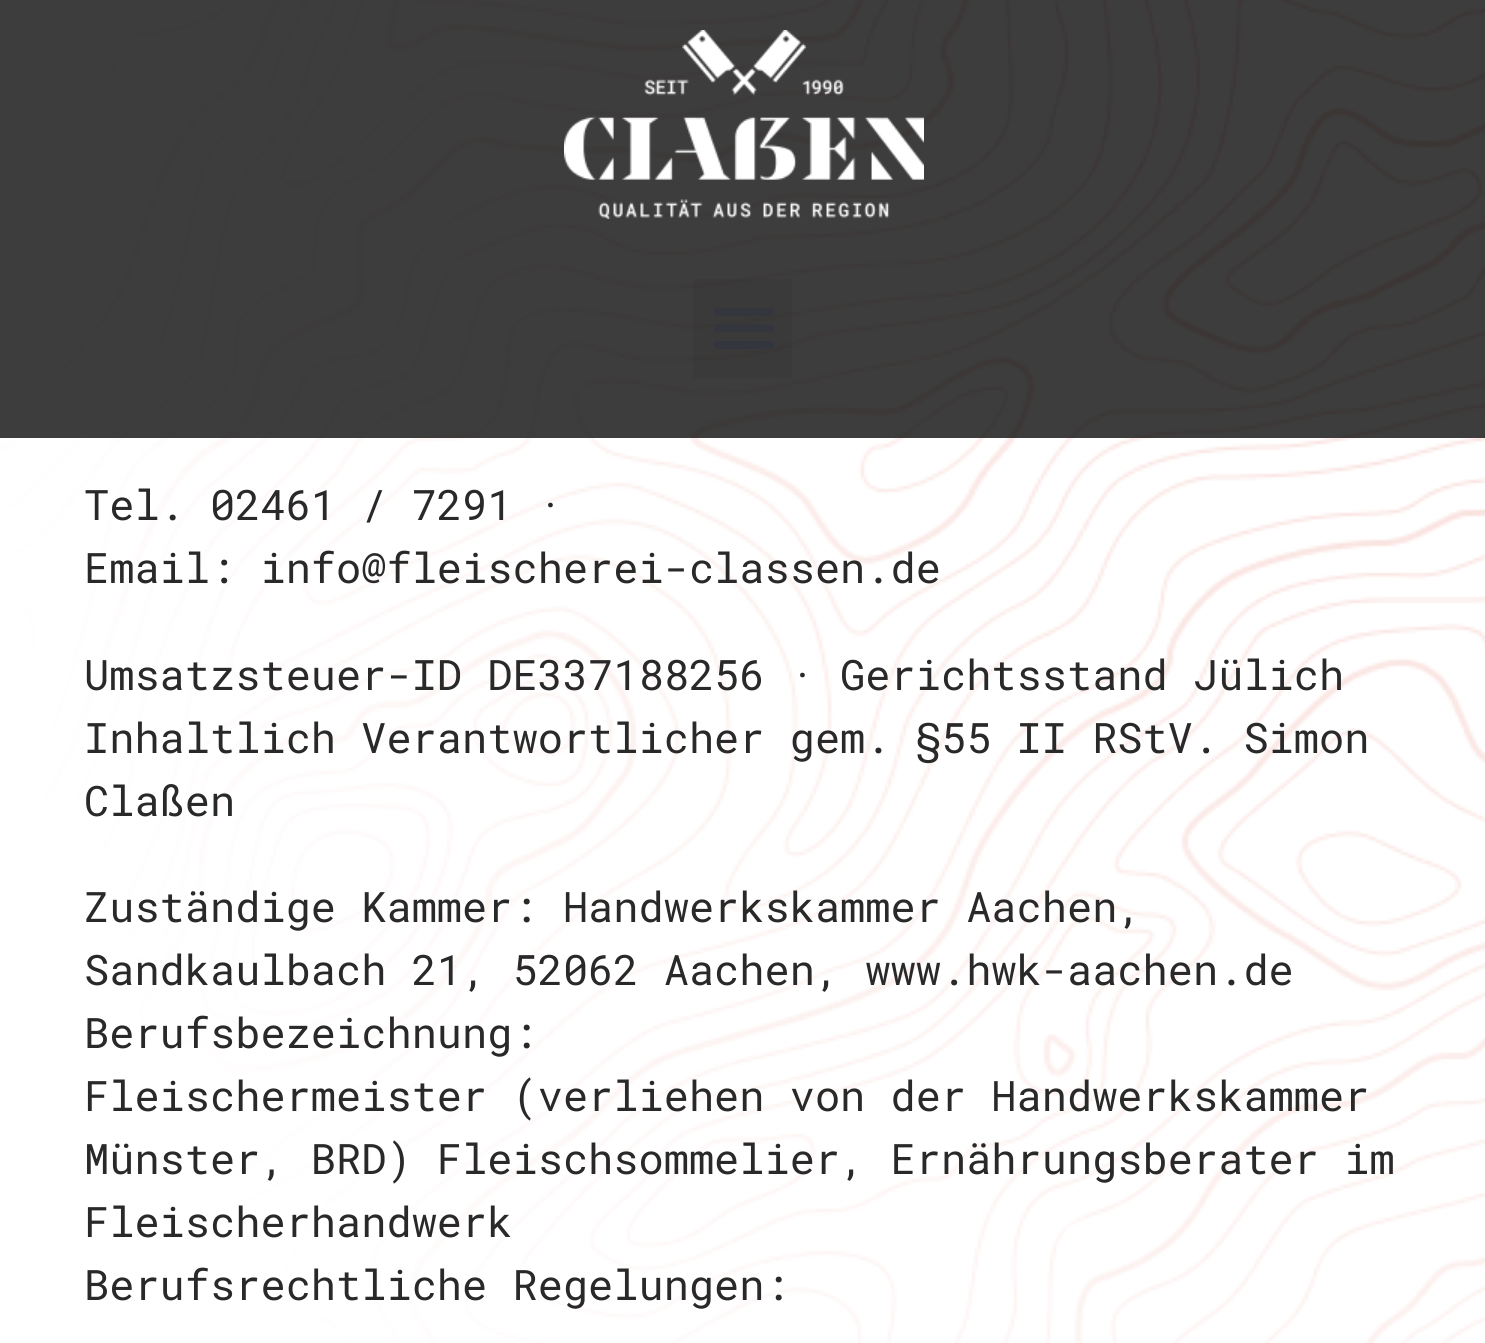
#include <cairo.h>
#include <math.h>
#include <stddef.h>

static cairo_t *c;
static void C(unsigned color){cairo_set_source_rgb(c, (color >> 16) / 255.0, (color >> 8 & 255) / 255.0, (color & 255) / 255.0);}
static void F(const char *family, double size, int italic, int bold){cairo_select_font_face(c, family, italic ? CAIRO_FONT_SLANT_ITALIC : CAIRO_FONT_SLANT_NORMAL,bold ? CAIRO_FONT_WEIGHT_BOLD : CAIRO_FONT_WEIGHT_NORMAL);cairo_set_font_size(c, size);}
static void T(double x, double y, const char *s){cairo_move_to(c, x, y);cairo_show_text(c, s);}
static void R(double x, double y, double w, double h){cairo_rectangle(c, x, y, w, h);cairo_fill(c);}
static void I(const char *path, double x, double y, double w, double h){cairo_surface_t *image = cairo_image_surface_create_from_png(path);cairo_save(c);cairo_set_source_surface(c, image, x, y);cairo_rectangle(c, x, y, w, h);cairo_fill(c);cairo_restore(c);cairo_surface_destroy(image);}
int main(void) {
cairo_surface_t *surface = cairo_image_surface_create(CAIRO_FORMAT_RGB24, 1485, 1343);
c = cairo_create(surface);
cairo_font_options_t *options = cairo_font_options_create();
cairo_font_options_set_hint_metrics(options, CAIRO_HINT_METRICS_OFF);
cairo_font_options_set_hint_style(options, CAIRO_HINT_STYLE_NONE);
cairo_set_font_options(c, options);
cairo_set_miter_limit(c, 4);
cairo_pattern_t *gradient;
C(0xffffff);
cairo_paint(c);
I("3.png",0,0,1485,1343);
gradient = cairo_pattern_create_radial(0,0,0,0,0,1);
cairo_pattern_set_matrix(gradient, &(cairo_matrix_t){1.0 / 2100, 0, 0, 1.0 / 2868, -1.0 * 1485 / 2100, -1.0 * -24 / 2868});
cairo_pattern_add_color_stop_rgba(gradient,0,1,1,1,.8);
cairo_pattern_add_color_stop_rgba(gradient,.75,1,1,1,1);
cairo_set_source(c,gradient);
cairo_pattern_destroy(gradient);
R(0,0,1485,1343);
cairo_set_source_rgba(c,0,0,0,0.76);
R(0,0,1485,438);
I("1.png",564,30,360,189);
cairo_set_source_rgba(c,0,0,0,0.05);
R(693,279,99,99);
I("2.png",714,308,60,41);
F("Roboto Mono",42,0,0);
C(0x292929);
T(84,520,"Tel. 02461 / 7291 ·");
T(84,583,"Email: info@fleischerei-classen.de");
T(84,690,"Umsatzsteuer-ID DE337188256 · Gerichtsstand Jülich");
T(84,753,"Inhaltlich Verantwortlicher gem. §55 II RStV. Simon");
T(84,816,"Claßen");
T(84,922,"Zuständige Kammer: Handwerkskammer Aachen,");
T(84,985,"Sandkaulbach 21, 52062 Aachen, www.hwk-aachen.de");
T(84,1048,"Berufsbezeichnung:");
T(84,1111,"Fleischermeister (verliehen von der Handwerkskammer");
T(84,1174,"Münster, BRD) Fleischsommelier, Ernährungsberater im");
T(84,1237,"Fleischerhandwerk");
T(84,1300,"Berufsrechtliche Regelungen:");
cairo_surface_write_to_png(surface, "o.png");
cairo_font_options_destroy(options);
cairo_destroy(c);
cairo_surface_destroy(surface);
return 0;
}
